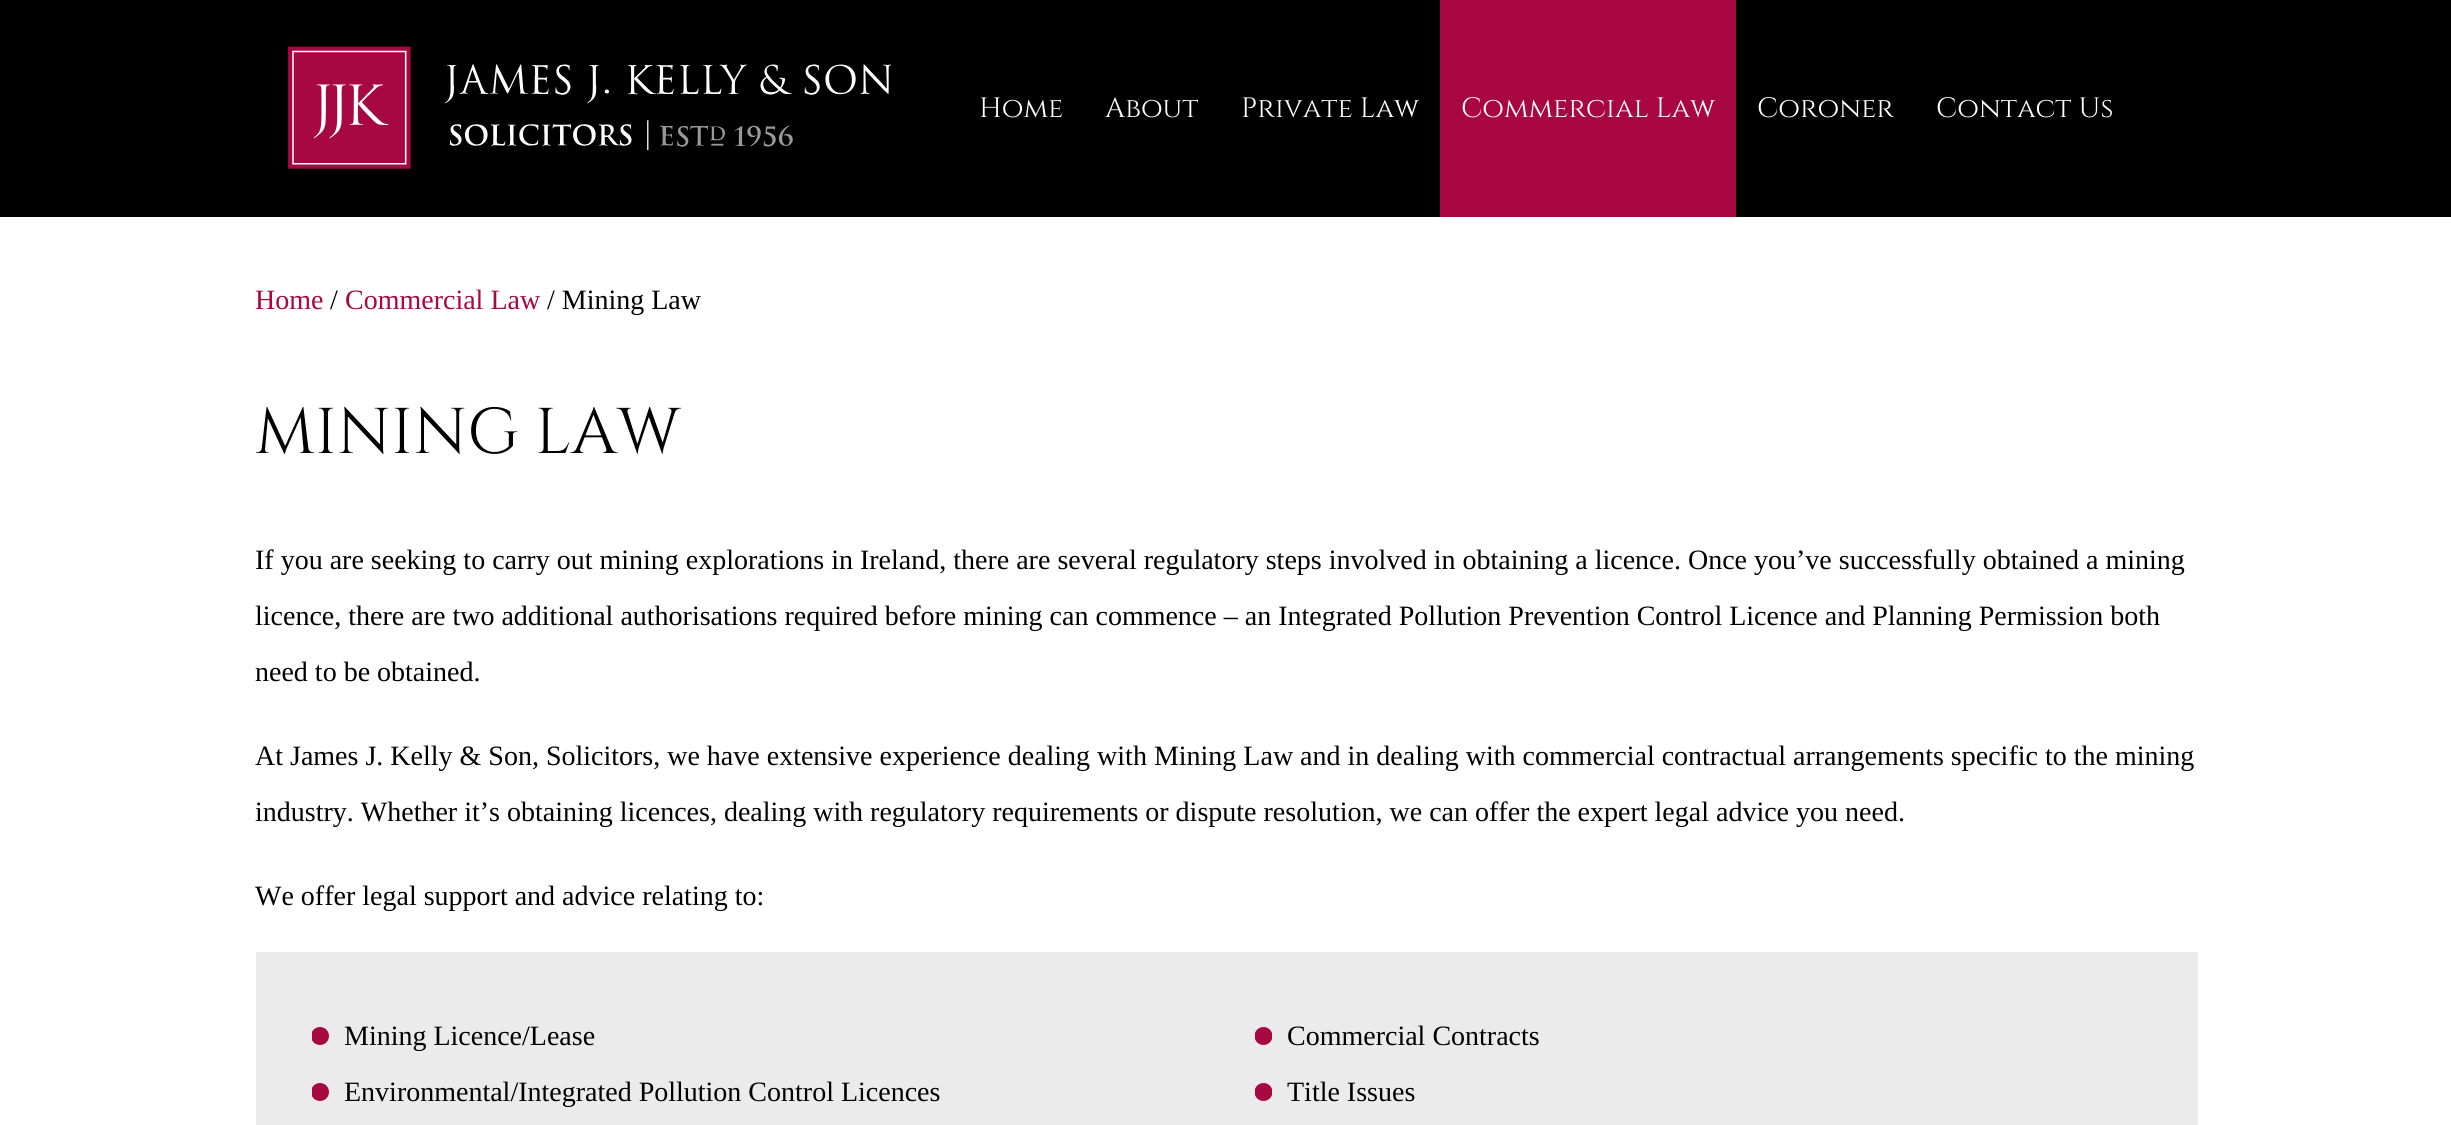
#include <cairo.h>
#include <math.h>
#include <stddef.h>

static cairo_t *c;
static void C(unsigned color){cairo_set_source_rgb(c, (color >> 16) / 255.0, (color >> 8 & 255) / 255.0, (color & 255) / 255.0);}
static void F(const char *family, double size, int italic, int bold){cairo_select_font_face(c, family, italic ? CAIRO_FONT_SLANT_ITALIC : CAIRO_FONT_SLANT_NORMAL,bold ? CAIRO_FONT_WEIGHT_BOLD : CAIRO_FONT_WEIGHT_NORMAL);cairo_set_font_size(c, size);}
static void T(double x, double y, const char *s){cairo_move_to(c, x, y);cairo_show_text(c, s);}
static void R(double x, double y, double w, double h){cairo_rectangle(c, x, y, w, h);cairo_fill(c);}
static void I(const char *path, double x, double y, double w, double h){cairo_surface_t *image = cairo_image_surface_create_from_png(path);cairo_save(c);cairo_set_source_surface(c, image, x, y);cairo_rectangle(c, x, y, w, h);cairo_fill(c);cairo_restore(c);cairo_surface_destroy(image);}
int main(void) {
cairo_surface_t *surface = cairo_image_surface_create(CAIRO_FORMAT_RGB24, 2451, 1125);
c = cairo_create(surface);
cairo_font_options_t *options = cairo_font_options_create();
cairo_font_options_set_hint_metrics(options, CAIRO_HINT_METRICS_OFF);
cairo_font_options_set_hint_style(options, CAIRO_HINT_STYLE_NONE);
cairo_set_font_options(c, options);
cairo_set_miter_limit(c, 4);
C(0xffffff);
cairo_paint(c);
C(0x000000);
R(0,0,2451,217);
I("1.png",288,46,604,123);
F("Cinzel",28,0,0);
C(0xffffff);
T(979,117,"Home");
T(1105,117,"About");
T(1241,117,"Private Law");
C(0xa80740);
R(1440,0,296,217);
C(0xffffff);
T(1461,117,"Commercial Law");
T(1757,117,"Coroner");
T(1936,117,"Contact Us");
F("Liberation Serif",28,0,0);
C(0xa80740);
T(255,309,"Home");
C(0x000000);
T(330,309,"/");
C(0xa80740);
T(345,309,"Commercial Law");
C(0x000000);
T(547,309,"/ Mining Law");
F("Cinzel",64.5,0,0);
T(255,453,"MINING LAW");
F("Liberation Serif",28,0,0);
T(255,569,"If you are seeking to carry out mining explorations in Ireland, there are several regulatory steps involved in obtaining a licence. Once you’ve successfully obtained a mining");
T(255,625,"licence, there are two additional authorisations required before mining can commence – an Integrated Pollution Prevention Control Licence and Planning Permission both");
T(255,681,"need to be obtained.");
T(255,765,"At James J. Kelly & Son, Solicitors, we have extensive experience dealing with Mining Law and in dealing with commercial contractual arrangements specific to the mining");
T(255,821,"industry. Whether it’s obtaining licences, dealing with regulatory requirements or dispute resolution, we can offer the expert legal advice you need.");
T(255,905,"We offer legal support and advice relating to:");
C(0xebebeb);
R(256,952,1942,173);
cairo_save(c);
cairo_rectangle(c,312,1027,17,18);
cairo_clip(c);
C(0xa80841);
cairo_arc(c,320,1036,9,0,2 * M_PI);
cairo_fill(c);
cairo_restore(c);
C(0x000000);
T(344,1045,"Mining Licence/Lease");
cairo_save(c);
cairo_rectangle(c,1255,1027,17,18);
cairo_clip(c);
C(0xa80841);
cairo_arc(c,1263.5,1036,9,0,2 * M_PI);
cairo_fill(c);
cairo_restore(c);
T(1287,1045,"Commercial Contracts");
cairo_save(c);
cairo_rectangle(c,312,1083,17,18);
cairo_clip(c);
C(0xa80841);
cairo_arc(c,320,1092,9,0,2 * M_PI);
cairo_fill(c);
cairo_restore(c);
T(344,1101,"Environmental/Integrated Pollution Control Licences");
cairo_save(c);
cairo_rectangle(c,1255,1083,17,18);
cairo_clip(c);
C(0xa80841);
cairo_arc(c,1263.5,1092,9,0,2 * M_PI);
cairo_fill(c);
cairo_restore(c);
T(1287,1101,"Title Issues");
cairo_surface_write_to_png(surface, "o.png");
cairo_font_options_destroy(options);
cairo_destroy(c);
cairo_surface_destroy(surface);
return 0;
}
